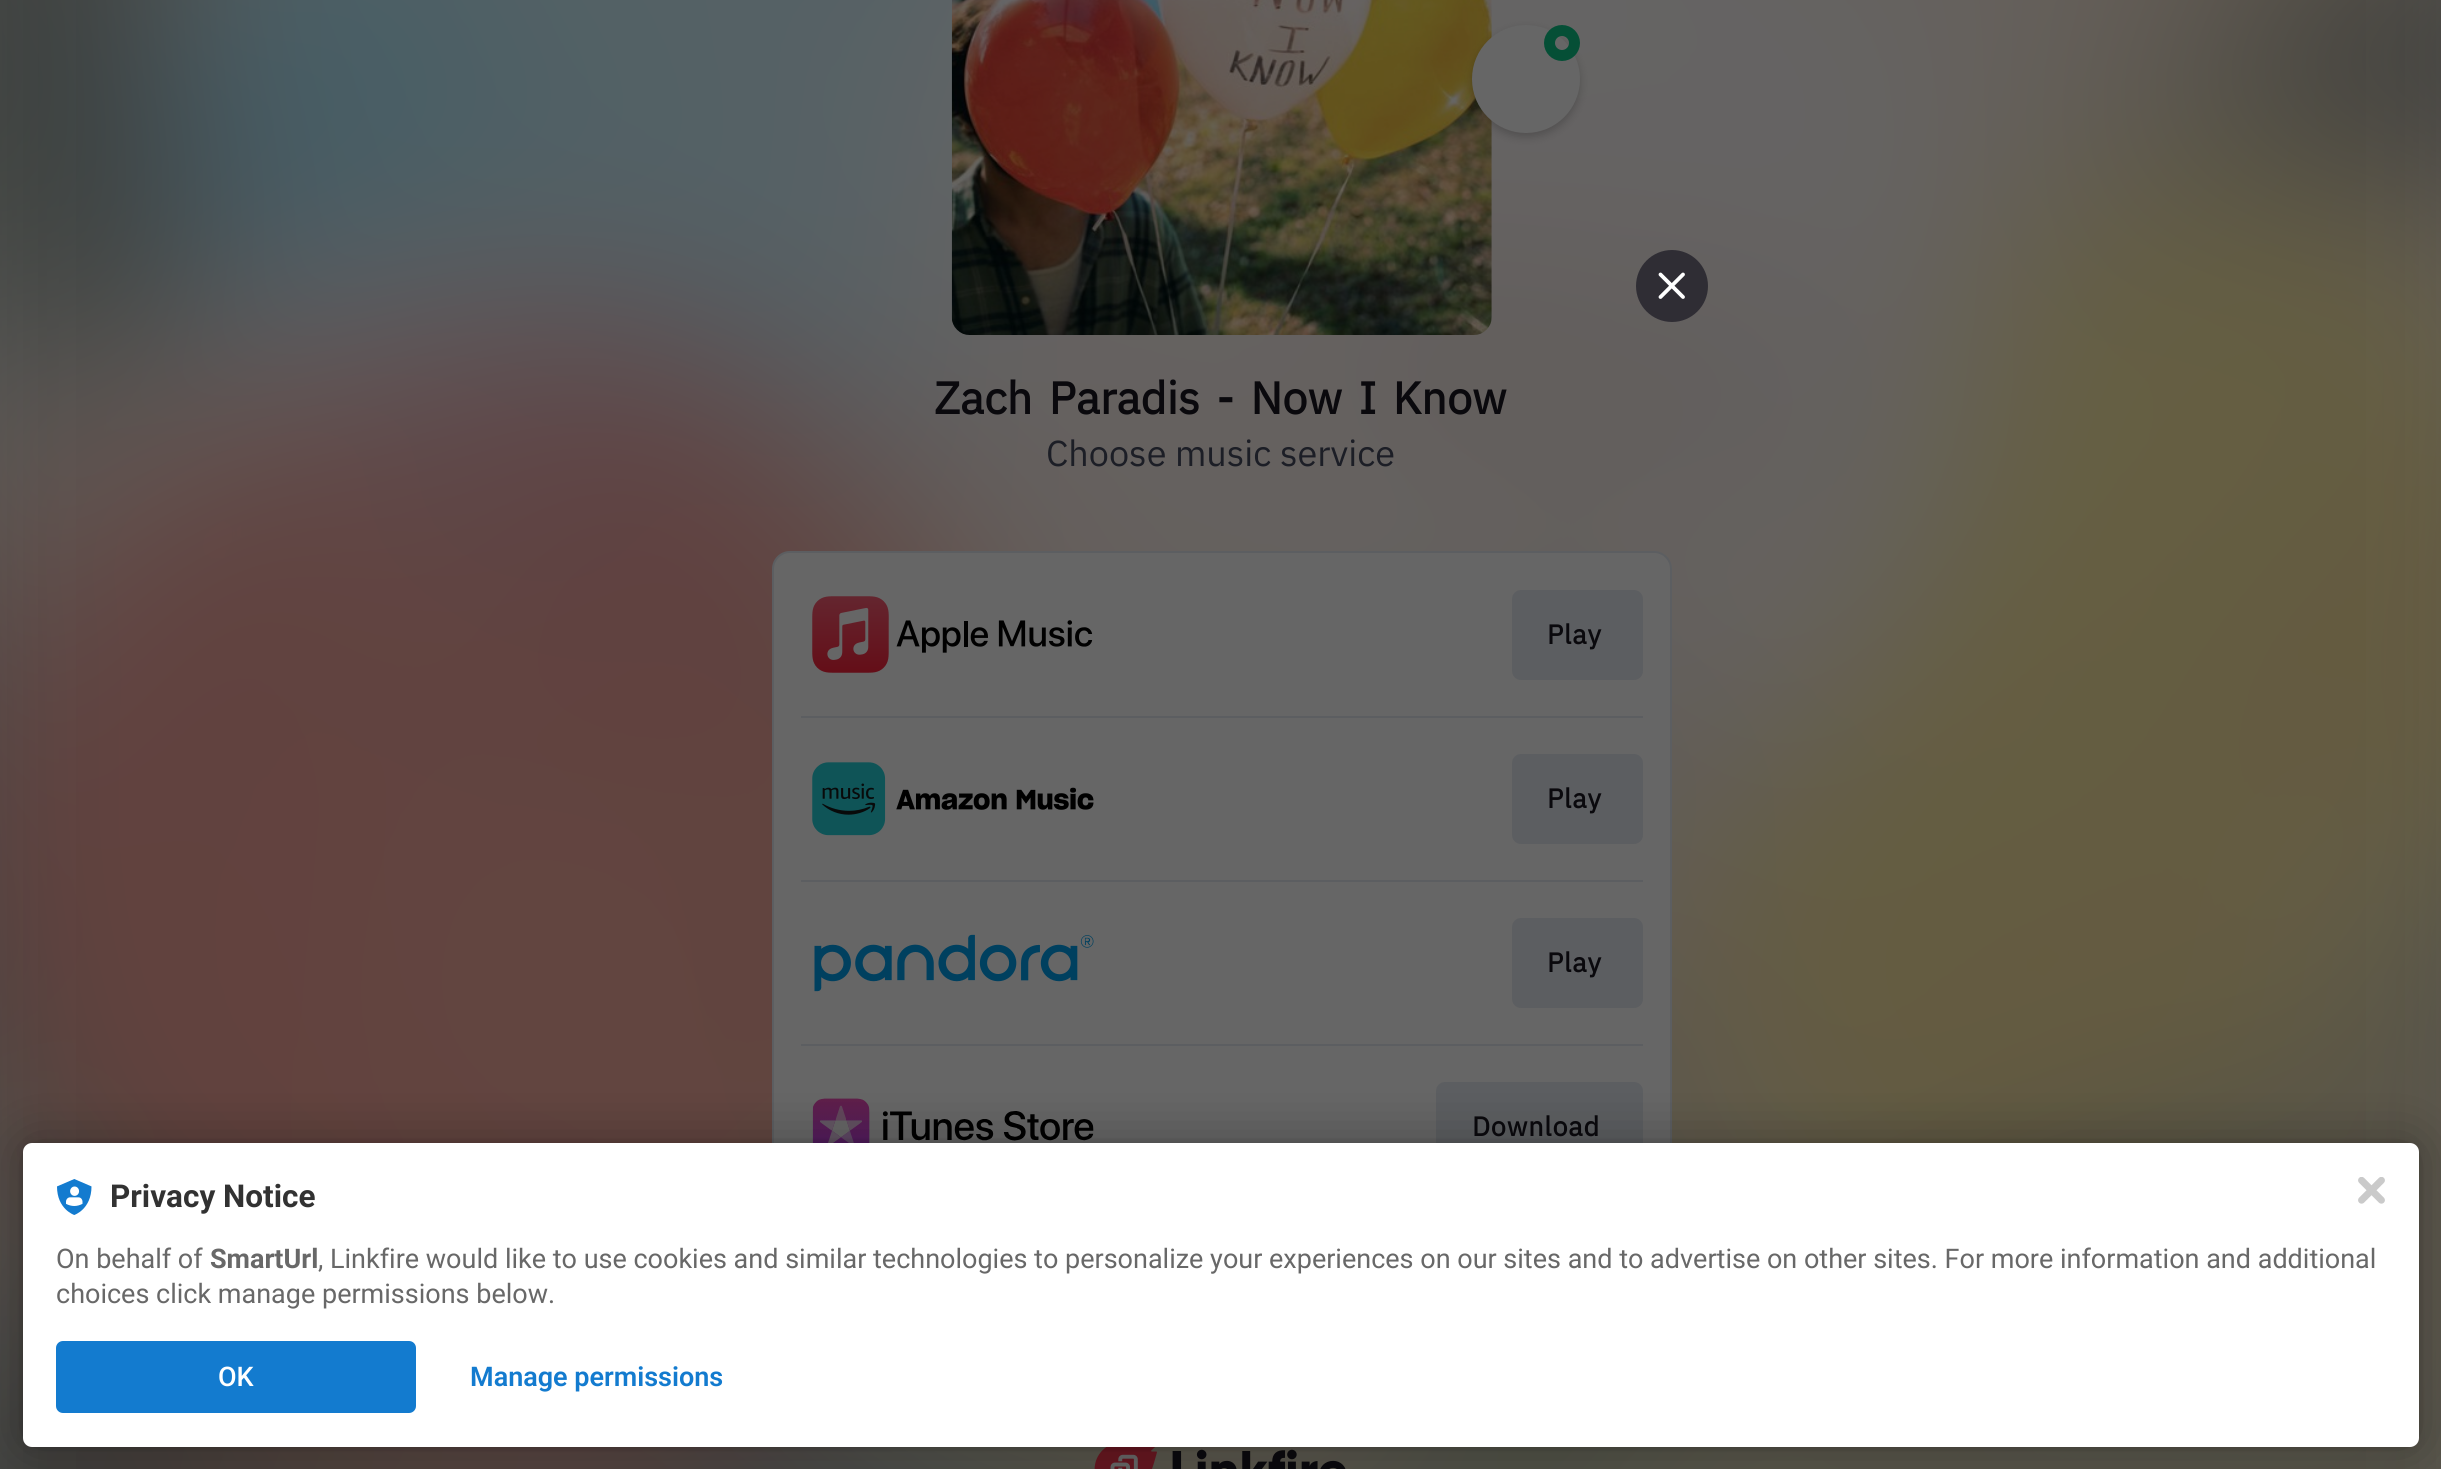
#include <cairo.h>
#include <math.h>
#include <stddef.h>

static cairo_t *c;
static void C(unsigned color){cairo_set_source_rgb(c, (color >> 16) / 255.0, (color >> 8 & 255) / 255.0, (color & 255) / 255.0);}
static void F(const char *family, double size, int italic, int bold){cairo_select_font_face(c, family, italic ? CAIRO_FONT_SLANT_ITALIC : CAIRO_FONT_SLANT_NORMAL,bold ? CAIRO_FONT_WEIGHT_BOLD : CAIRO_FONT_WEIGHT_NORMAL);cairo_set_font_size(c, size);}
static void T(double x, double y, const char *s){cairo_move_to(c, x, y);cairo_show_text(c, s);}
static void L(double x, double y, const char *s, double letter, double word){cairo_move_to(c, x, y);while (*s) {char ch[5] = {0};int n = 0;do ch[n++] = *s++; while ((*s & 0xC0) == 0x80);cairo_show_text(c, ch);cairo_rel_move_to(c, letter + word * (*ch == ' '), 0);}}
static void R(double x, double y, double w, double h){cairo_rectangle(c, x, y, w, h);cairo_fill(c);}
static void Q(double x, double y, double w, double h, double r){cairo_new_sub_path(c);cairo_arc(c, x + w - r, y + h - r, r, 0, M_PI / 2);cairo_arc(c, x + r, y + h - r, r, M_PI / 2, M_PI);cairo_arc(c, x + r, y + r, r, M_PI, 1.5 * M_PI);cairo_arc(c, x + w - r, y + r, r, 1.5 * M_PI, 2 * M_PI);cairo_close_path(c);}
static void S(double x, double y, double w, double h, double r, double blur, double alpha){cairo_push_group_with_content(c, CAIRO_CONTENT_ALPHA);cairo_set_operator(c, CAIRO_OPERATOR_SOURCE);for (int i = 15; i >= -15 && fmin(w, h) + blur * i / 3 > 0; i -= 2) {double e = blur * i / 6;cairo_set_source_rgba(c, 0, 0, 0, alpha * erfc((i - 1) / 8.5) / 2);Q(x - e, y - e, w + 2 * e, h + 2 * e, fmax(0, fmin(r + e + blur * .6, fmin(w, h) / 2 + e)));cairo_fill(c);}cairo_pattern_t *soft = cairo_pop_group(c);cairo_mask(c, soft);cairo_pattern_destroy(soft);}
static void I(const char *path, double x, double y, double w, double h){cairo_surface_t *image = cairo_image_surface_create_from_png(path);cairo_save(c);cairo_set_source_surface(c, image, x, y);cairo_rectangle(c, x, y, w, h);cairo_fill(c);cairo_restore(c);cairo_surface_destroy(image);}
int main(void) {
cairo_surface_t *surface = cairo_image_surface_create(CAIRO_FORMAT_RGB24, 2441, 1469);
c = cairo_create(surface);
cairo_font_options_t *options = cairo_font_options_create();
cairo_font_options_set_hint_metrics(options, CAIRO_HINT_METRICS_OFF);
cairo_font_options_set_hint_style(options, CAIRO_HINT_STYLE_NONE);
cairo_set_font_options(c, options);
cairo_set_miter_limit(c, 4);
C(0x666666);
cairo_paint(c);
I("1.png",0,0,2441,1469);
I("2.png",951,0,541,335);
C(0x000000);
S(1472,29,108,108,54,4.5,.2);
C(0x666666);
cairo_arc(c,1526,79,54,0,2 * M_PI);
cairo_fill(c);
cairo_arc(c,1562,43,12.5,0,2 * M_PI);
C(0x054f36);
cairo_set_line_width(c,11);
cairo_stroke(c);
C(0x2f2d34);
cairo_arc(c,1672,286,36,0,2 * M_PI);
cairo_fill(c);
cairo_new_path(c);
cairo_move_to(c,1660.5,274.5);
cairo_line_to(c,1683,297);
cairo_move_to(c,1660.5,297);
cairo_line_to(c,1683,274.5);
C(0xffffff);
cairo_set_line_width(c,3.8);
cairo_set_line_cap(c,CAIRO_LINE_CAP_ROUND);
cairo_set_line_join(c,CAIRO_LINE_JOIN_ROUND);
cairo_stroke(c);
F("IBM Plex Sans",45,0,1);
C(0x0a090d);
L(934,414,"Zach Paradis - Now I Know",0,5.75);
F("IBM Plex Sans",36,0,0);
C(0x1c1e26);
T(1046,466,"Choose music service");
C(0x666666);
Q(773,552,898,658,17);
cairo_fill_preserve(c);
C(0x5c5e61);
cairo_set_line_width(c,2);
cairo_set_line_cap(c,CAIRO_LINE_CAP_BUTT);
cairo_set_line_join(c,CAIRO_LINE_JOIN_MITER);
cairo_stroke(c);
I("3.png",812,596,281,77);
Q(1512,590,131,90,9);
cairo_fill(c);
F("IBM Plex Sans",27,0,1);
C(0x0a090d);
L(1547,644,"Play",.75,0);
C(0x5c5e61);
R(801,716,842,2);
I("4.png",812,762,282,74);
Q(1512,754,131,90,9);
cairo_fill(c);
C(0x0a090d);
L(1547,808,"Play",.75,0);
C(0x5c5e61);
R(801,880,842,2);
I("5.png",814,934,280,58);
Q(1512,918,131,90,9);
cairo_fill(c);
C(0x0a090d);
L(1547,972,"Play",.75,0);
C(0x5c5e61);
R(801,1044,842,2);
I("6.png",812,1098,282,45);
Q(1436,1082,207,90,9);
cairo_fill(c);
C(0x0a090d);
L(1472,1136,"Download",.75,0);
I("7.png",1094,1447,252,22);
C(0x000000);
S(23,1143,2396,304,9,4.5,.12);
S(23,1143,2396,304,9,27,.3);
C(0xffffff);
Q(23,1143,2396,304,9);
cairo_fill(c);
I("8.png",2358,1177,27,27);
I("9.png",57,1179,35,36);
F("Roboto",31.5,0,1);
C(0x323232);
T(110,1207,"Privacy Notice");
F("Roboto",27,0,0);
C(0x686868);
T(56,1268,"On behalf of");
F("Roboto",27,0,1);
T(210,1268,"SmartUrl");
F("Roboto",27,0,0);
T(318,1268,", Linkfire would like to use cookies and similar technologies to personalize your experiences on our sites and to advertise on other sites. For more information and additional");
T(56,1303,"choices click manage permissions below.");
C(0x137bcf);
Q(56,1341,360,72,7);
cairo_fill(c);
F("Roboto Medium",27,0,0);
C(0xffffff);
T(218,1386,"OK");
F("Roboto SemiBold",27,0,0);
C(0x137bcf);
T(470,1386,"Manage permissions");
cairo_surface_write_to_png(surface, "o.png");
cairo_font_options_destroy(options);
cairo_destroy(c);
cairo_surface_destroy(surface);
return 0;
}
